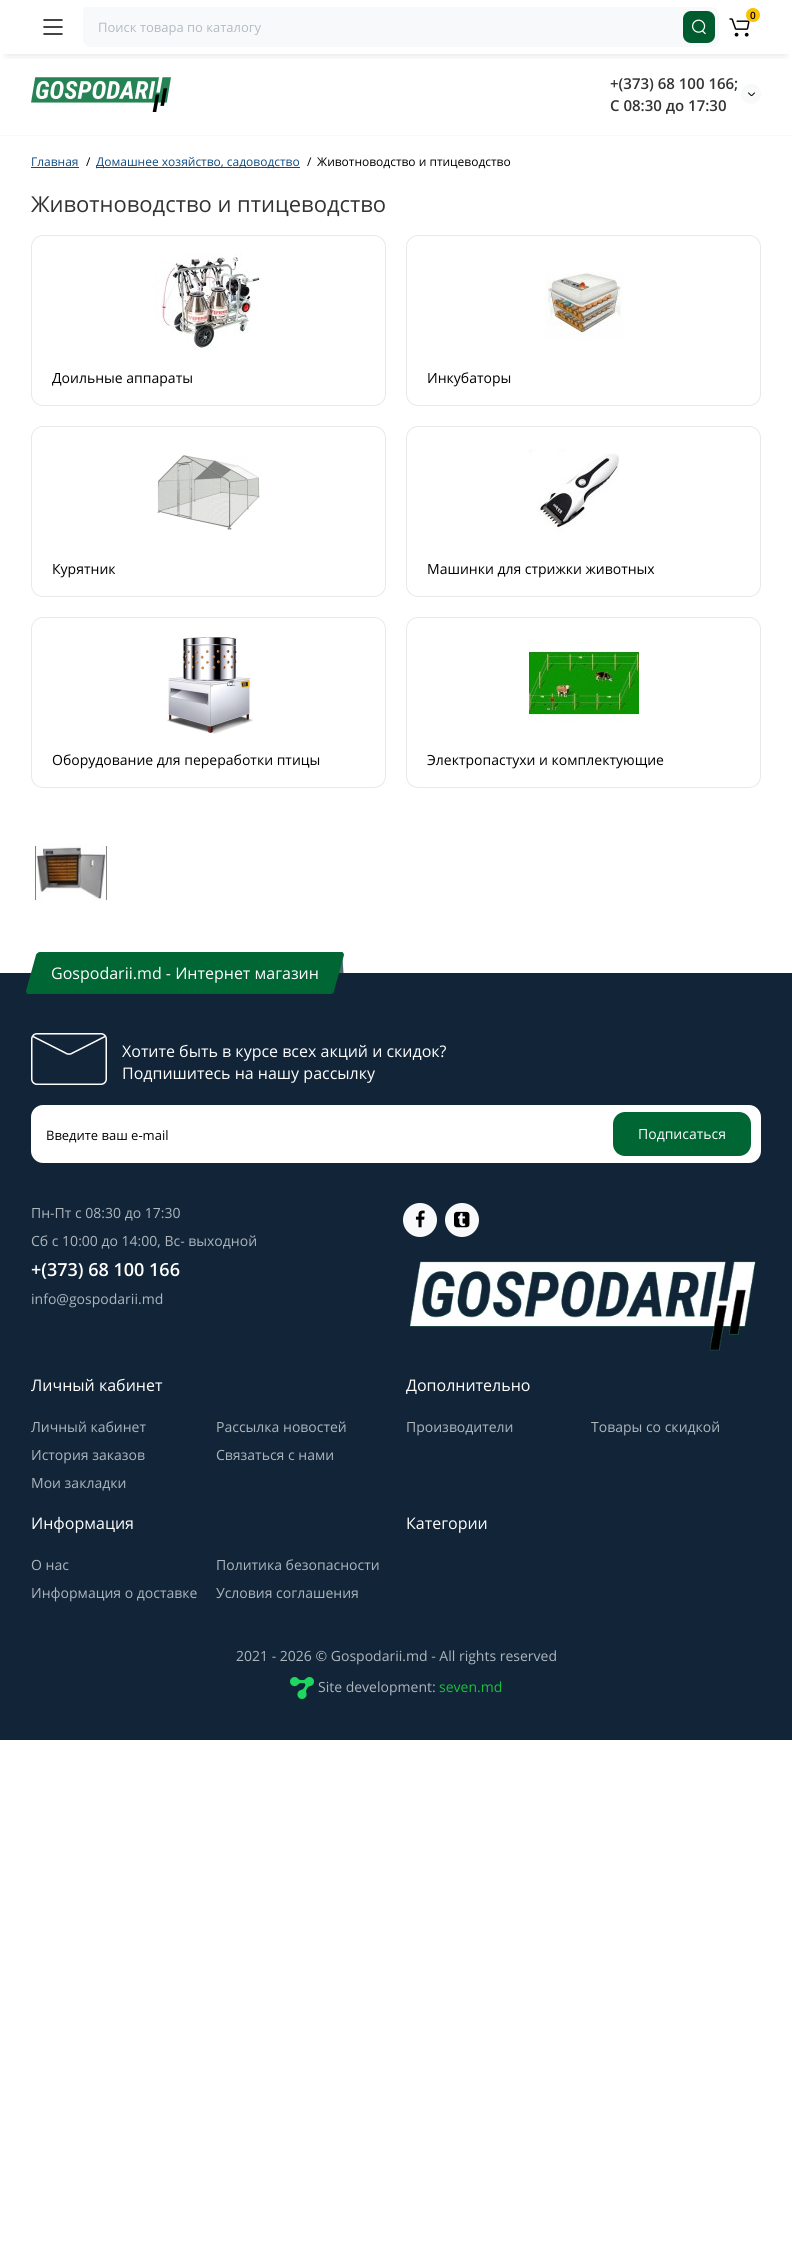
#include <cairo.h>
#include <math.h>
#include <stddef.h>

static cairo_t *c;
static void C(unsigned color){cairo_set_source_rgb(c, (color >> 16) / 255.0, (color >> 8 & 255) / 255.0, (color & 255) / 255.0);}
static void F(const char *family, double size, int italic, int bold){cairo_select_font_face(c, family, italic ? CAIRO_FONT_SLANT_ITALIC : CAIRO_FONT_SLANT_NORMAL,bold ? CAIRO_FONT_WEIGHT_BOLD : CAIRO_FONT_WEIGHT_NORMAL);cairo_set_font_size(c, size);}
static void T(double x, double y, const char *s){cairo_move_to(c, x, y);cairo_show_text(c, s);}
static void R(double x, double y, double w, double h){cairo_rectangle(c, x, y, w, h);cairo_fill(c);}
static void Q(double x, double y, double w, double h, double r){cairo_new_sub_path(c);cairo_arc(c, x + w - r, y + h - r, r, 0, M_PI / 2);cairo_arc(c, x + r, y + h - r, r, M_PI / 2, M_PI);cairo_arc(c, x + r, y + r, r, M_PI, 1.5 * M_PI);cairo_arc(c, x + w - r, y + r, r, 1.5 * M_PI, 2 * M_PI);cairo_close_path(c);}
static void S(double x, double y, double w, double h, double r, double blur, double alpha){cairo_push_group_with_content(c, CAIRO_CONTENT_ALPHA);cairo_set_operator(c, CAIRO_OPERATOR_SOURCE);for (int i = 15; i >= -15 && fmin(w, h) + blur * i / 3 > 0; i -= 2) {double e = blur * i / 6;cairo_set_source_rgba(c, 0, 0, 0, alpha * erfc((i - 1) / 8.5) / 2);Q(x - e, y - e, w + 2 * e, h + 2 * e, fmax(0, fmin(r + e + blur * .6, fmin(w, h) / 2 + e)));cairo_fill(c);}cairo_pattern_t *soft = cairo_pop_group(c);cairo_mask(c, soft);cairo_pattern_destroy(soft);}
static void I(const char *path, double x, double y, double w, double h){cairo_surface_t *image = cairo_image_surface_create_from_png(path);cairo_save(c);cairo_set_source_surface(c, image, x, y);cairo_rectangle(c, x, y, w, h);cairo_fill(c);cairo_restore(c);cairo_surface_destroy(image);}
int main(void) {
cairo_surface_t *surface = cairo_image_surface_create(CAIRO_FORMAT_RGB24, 792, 2258);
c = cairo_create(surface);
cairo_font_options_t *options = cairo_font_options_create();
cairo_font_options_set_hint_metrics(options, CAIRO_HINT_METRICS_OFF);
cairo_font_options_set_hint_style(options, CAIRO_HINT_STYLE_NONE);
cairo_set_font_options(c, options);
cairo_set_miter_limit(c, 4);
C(0xffffff);
cairo_paint(c);
C(0xf8f9fa);
R(0,135,792,1);
cairo_save(c);
cairo_rectangle(c,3,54,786,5);
cairo_clip(c);
C(0x000000);
S(7,7,778,40,0,7.5,.4);
cairo_restore(c);
I("1.png",729,18,21,19);
C(0xfcc100);
cairo_arc(c,753,15,7,0,2 * M_PI);
cairo_fill(c);
F("Open Sans SemiBold",10,0,0);
C(0x000000);
T(750,19,"0");
cairo_new_path(c);
cairo_move_to(c,44,20);
cairo_line_to(c,62,20);
cairo_move_to(c,44,27);
cairo_line_to(c,62,27);
cairo_move_to(c,44,34);
cairo_line_to(c,62,34);
cairo_set_line_width(c,1.5);
cairo_set_line_cap(c,CAIRO_LINE_CAP_ROUND);
cairo_set_line_join(c,CAIRO_LINE_JOIN_ROUND);
cairo_stroke(c);
C(0xf8f9fa);
cairo_new_path(c);
cairo_move_to(c,86,7);
cairo_line_to(c,684,7);
cairo_line_to(c,684,47);
cairo_line_to(c,91,47);
cairo_curve_to(c,86.5,47,83,43.5,83,39);
cairo_line_to(c,83,10);
cairo_curve_to(c,83,8.5,84.5,7,86,7);
cairo_close_path(c);
cairo_fill(c);
F("Open Sans",13,0,0);
C(0xb2bbc5);
T(98,32,"Поиск товара по каталогу");
C(0xf8f9fa);
cairo_new_path(c);
cairo_move_to(c,684,7);
cairo_line_to(c,711,7);
cairo_curve_to(c,715.5,7,719,10.5,719,15);
cairo_line_to(c,719,39);
cairo_curve_to(c,719,43.5,715.5,47,711,47);
cairo_line_to(c,684,47);
cairo_close_path(c);
cairo_fill(c);
C(0x005c2f);
Q(683,11,32,32,8);
cairo_fill(c);
I("2.png",692,19,14,16);
I("3.png",31,77,140,35);
F("Open Sans SemiBold",15,0,0);
C(0x333333);
T(610,89,"+(373) 68 100 166;");
C(0xf8f9fa);
cairo_new_path(c);
cairo_arc(c,751,94,10,0,2 * M_PI);
cairo_fill(c);
I("4.png",748,92,7,4);
C(0x333333);
T(610,111,"С 08:30 до 17:30");
F("Open Sans",12,0,0);
C(0x0f4b82);
T(31,166,"Главная");
R(31,167,48,1);
C(0x000000);
T(86,166,"/");
C(0x0f4b82);
R(96,167,204,1);
T(96,166,"Домашнее хозяйство, садоводство");
C(0x000000);
T(307,166,"/");
T(317,166,"Животноводство и птицеводство");
F("Open Sans",22,0,0);
C(0x333333);
T(31,212,"Животноводство и птицеводство");
Q(31.5,235.5,354,170,11.5);
C(0xe9e9e9);
cairo_set_line_width(c,1);
cairo_set_line_cap(c,CAIRO_LINE_CAP_BUTT);
cairo_set_line_join(c,CAIRO_LINE_JOIN_MITER);
cairo_stroke(c);
I("5.png",154,254,110,96);
F("Open Sans",14,0,0);
C(0x000000);
T(52,383,"Доильные аппараты");
Q(406.5,235.5,354,170,11.5);
C(0xe9e9e9);
cairo_stroke(c);
I("6.png",545,272,78,69);
C(0x000000);
T(427,383,"Инкубаторы");
Q(31.5,426.5,354,170,11.5);
C(0xe9e9e9);
cairo_stroke(c);
I("7.png",157,455,103,75);
C(0x000000);
T(52,574,"Курятник");
Q(406.5,426.5,354,170,11.5);
C(0xe9e9e9);
cairo_stroke(c);
I("8.png",529,449,90,84);
C(0x000000);
T(427,574,"Машинки для стрижки животных");
Q(31.5,617.5,354,170,11.5);
C(0xe9e9e9);
cairo_stroke(c);
I("9.png",167,637,86,97);
C(0x000000);
T(52,765,"Оборудование для переработки птицы");
Q(406.5,617.5,354,170,11.5);
C(0xe9e9e9);
cairo_stroke(c);
I("10.png",529,645,110,77);
C(0x000000);
T(427,765,"Электропастухи и комплектующие");
I("11.png",35,845,72,56);
C(0x4b6a69);
cairo_new_path(c);
cairo_move_to(c,320.5,952);
cairo_line_to(c,336.5,952);
cairo_curve_to(c,339.5,952,342.5,955,342.5,958);
cairo_line_to(c,343.5,973);
cairo_line_to(c,327.5,973);
cairo_curve_to(c,324,973,321.5,970.5,321,967);
cairo_close_path(c);
cairo_fill(c);
C(0x122538);
R(0,973,792,767);
C(0x006634);
cairo_new_path(c);
cairo_move_to(c,40,952);
cairo_line_to(c,342,952);
cairo_curve_to(c,343,952,344,954,344,955);
cairo_line_to(c,334,991);
cairo_curve_to(c,334,993,332,994,330,994);
cairo_line_to(c,28,994);
cairo_curve_to(c,27,994,26,993,26,991);
cairo_line_to(c,36,955);
cairo_curve_to(c,36,954,38,952,40,952);
cairo_close_path(c);
cairo_fill(c);
F("Open Sans",16,0,0);
C(0xffffff);
T(51,979,"Gospodarii.md - Интернет магазин");
Q(31.75,1033.75,74.5,50.5,5.25);
cairo_set_line_width(c,1.5);
cairo_stroke(c);
cairo_new_path(c);
cairo_move_to(c,33,1036.5);
cairo_line_to(c,65.5,1053);
cairo_curve_to(c,67.5,1054.5,70.5,1054.5,72.5,1053);
cairo_line_to(c,105,1036.5);
cairo_stroke(c);
T(122,1057,"Хотите быть в курсе всех акций и скидок?");
T(122,1079,"Подпишитесь на нашу рассылку");
cairo_new_path(c);
cairo_move_to(c,43,1105);
cairo_line_to(c,614,1105);
cairo_line_to(c,614,1163);
cairo_line_to(c,43,1163);
cairo_curve_to(c,36.5,1163,31,1157.5,31,1151);
cairo_line_to(c,31,1117);
cairo_curve_to(c,31,1110.5,36.5,1105,43,1105);
cairo_close_path(c);
cairo_fill(c);
F("Open Sans",13,0,0);
C(0x000000);
T(46,1140,"Введите ваш e-mail");
C(0xffffff);
cairo_new_path(c);
cairo_move_to(c,614,1105);
cairo_line_to(c,749,1105);
cairo_curve_to(c,755.5,1105,761,1110.5,761,1117);
cairo_line_to(c,761,1151);
cairo_curve_to(c,761,1157.5,755.5,1163,749,1163);
cairo_line_to(c,614,1163);
cairo_close_path(c);
cairo_fill(c);
C(0x006634);
Q(613,1112,138,44,12);
cairo_fill(c);
F("Open Sans",14,0,0);
C(0xffffff);
T(638,1139,"Подписаться");
C(0xadb5bd);
T(31,1218,"Пн-Пт с 08:30 до 17:30");
T(31,1246,"Сб с 10:00 до 14:00, Вс- выходной");
F("Open Sans SemiBold",18,0,0);
C(0xffffff);
T(31,1276,"+(373) 68 100 166");
F("Open Sans",14,0,0);
C(0xadb5bd);
T(31,1304,"info@gospodarii.md");
C(0xf8f9fa);
cairo_new_path(c);
cairo_arc(c,420,1220,17,0,2 * M_PI);
cairo_fill(c);
I("12.png",415,1210,10,18);
cairo_arc(c,462,1220,17,0,2 * M_PI);
cairo_fill(c);
I("13.png",454,1211,16,17);
I("14.png",410,1261,346,90);
F("Open Sans",16,0,0);
C(0xffffff);
T(31,1391,"Личный кабинет");
F("Open Sans",14,0,0);
C(0xadb5bd);
T(31,1432,"Личный кабинет");
T(216,1432,"Рассылка новостей");
T(31,1460,"История заказов");
T(216,1460,"Связаться с нами");
T(31,1488,"Мои закладки");
F("Open Sans",16,0,0);
C(0xffffff);
T(406,1391,"Дополнительно");
F("Open Sans",14,0,0);
C(0xadb5bd);
T(406,1432,"Производители");
T(591,1432,"Товары со скидкой");
F("Open Sans",16,0,0);
C(0xffffff);
T(31,1529,"Информация");
F("Open Sans",14,0,0);
C(0xadb5bd);
T(31,1570,"О нас");
T(216,1570,"Политика безопасности");
T(31,1598,"Информация о доставке");
T(216,1598,"Условия соглашения");
F("Open Sans",16,0,0);
C(0xffffff);
T(406,1529,"Категории");
F("Open Sans",14,0,0);
C(0xadb5bd);
T(236,1661,"2021 - 2026 © Gospodarii.md - All rights reserved");
I("15.png",290,1677,24,22);
T(318,1692,"Site development:");
C(0x18c139);
T(439,1692,"seven.md");
cairo_surface_write_to_png(surface, "o.png");
cairo_font_options_destroy(options);
cairo_destroy(c);
cairo_surface_destroy(surface);
return 0;
}
